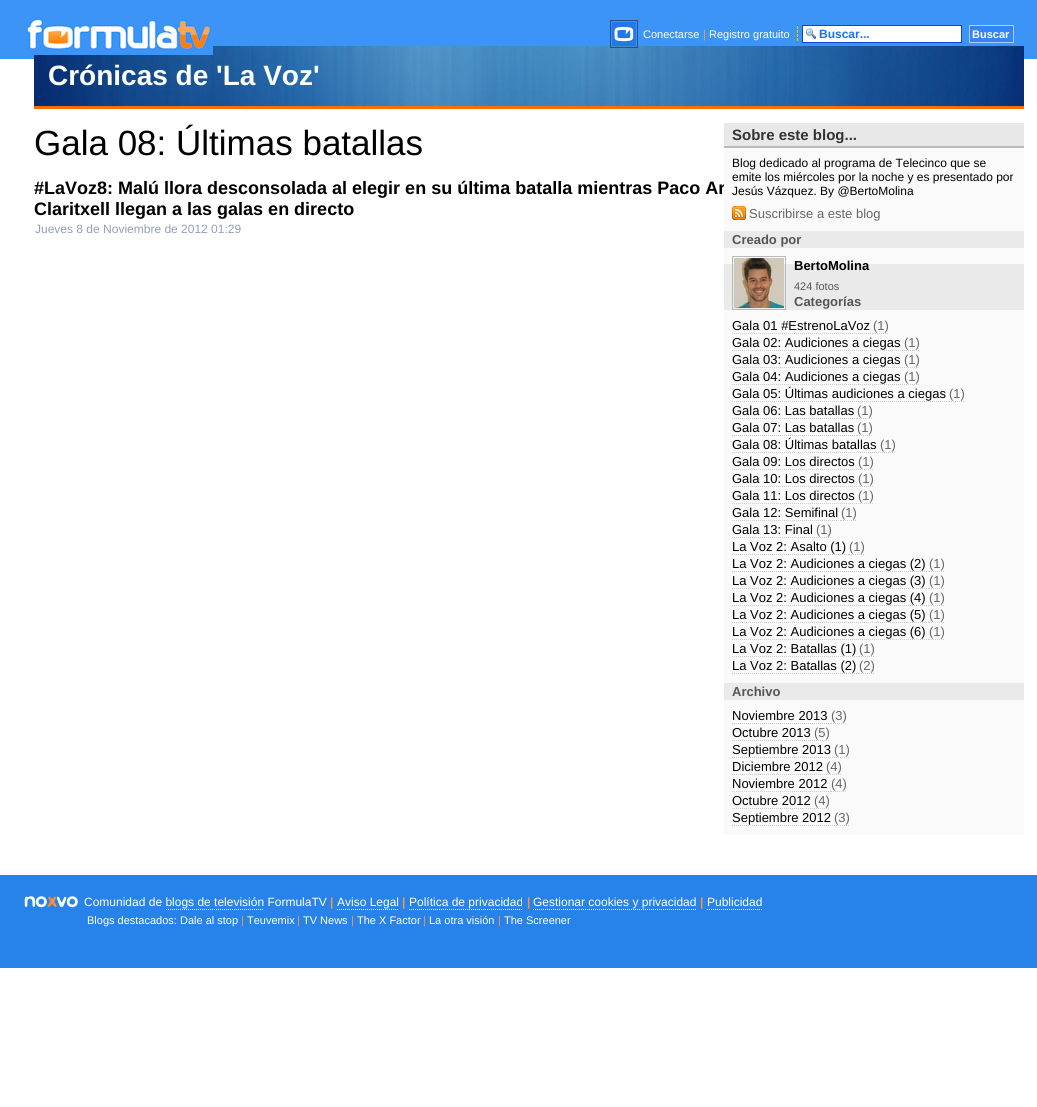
#include <cairo.h>
#include <math.h>
#include <stddef.h>

static cairo_t *c;
static void C(unsigned color){cairo_set_source_rgb(c, (color >> 16) / 255.0, (color >> 8 & 255) / 255.0, (color & 255) / 255.0);}
static void F(const char *family, double size, int italic, int bold){cairo_select_font_face(c, family, italic ? CAIRO_FONT_SLANT_ITALIC : CAIRO_FONT_SLANT_NORMAL,bold ? CAIRO_FONT_WEIGHT_BOLD : CAIRO_FONT_WEIGHT_NORMAL);cairo_set_font_size(c, size);}
static void T(double x, double y, const char *s){cairo_move_to(c, x, y);cairo_show_text(c, s);}
static void R(double x, double y, double w, double h){cairo_rectangle(c, x, y, w, h);cairo_fill(c);}
static void I(const char *path, double x, double y, double w, double h){cairo_surface_t *image = cairo_image_surface_create_from_png(path);cairo_save(c);cairo_set_source_surface(c, image, x, y);cairo_rectangle(c, x, y, w, h);cairo_fill(c);cairo_restore(c);cairo_surface_destroy(image);}
int main(void) {
cairo_surface_t *surface = cairo_image_surface_create(CAIRO_FORMAT_RGB24, 1037, 1107);
c = cairo_create(surface);
cairo_font_options_t *options = cairo_font_options_create();
cairo_font_options_set_hint_metrics(options, CAIRO_HINT_METRICS_OFF);
cairo_font_options_set_hint_style(options, CAIRO_HINT_STYLE_NONE);
cairo_set_font_options(c, options);
cairo_set_miter_limit(c, 4);
C(0xffffff);
cairo_paint(c);
C(0x3c94f6);
R(0,0,1037,59);
I("5.png",34,46,990,60);
I("1.png",26,16,187,39);
cairo_rectangle(c,610.5,20.5,27,27);
C(0x24518c);
cairo_set_line_width(c,1);
cairo_stroke(c);
I("2.png",612,22,24,24);
F("Liberation Sans",11,0,0);
C(0xffffff);
T(643,38,"Conectarse");
C(0xff9b38);
T(703,38,"|");
C(0xffffff);
T(709,38,"Registro gratuito");
I("3.png",797,25,1,17);
R(803,26,158,16);
I("4.png",806,28,10,12);
cairo_rectangle(c,802.5,25.5,159,17);
C(0x1045d1);
cairo_stroke(c);
F("Liberation Sans",12,0,1);
C(0x1a71f2);
T(819,38,"Buscar...");
C(0x3584f5);
cairo_rectangle(c,969.5,25.5,44,17);
cairo_fill_preserve(c);
C(0xacccfb);
cairo_stroke(c);
F("Liberation Sans",11,0,1);
C(0xffffff);
T(972,38,"Buscar");
C(0xfa6f00);
R(34,106,990,3);
F("Liberation Sans",28,0,1);
C(0xffffff);
T(48,85,"Crónicas de 'La Voz'");
F("Liberation Sans",35,0,0);
C(0x000000);
T(34,155,"Gala 08: Últimas batallas");
F("Liberation Sans",18,0,1);
T(34,194,"#LaVoz8: Malú llora desconsolada al elegir en su última batalla mientras Paco Ar");
T(34,215,"Claritxell llegan a las galas en directo");
F("Liberation Sans",12,0,0);
C(0x929ebc);
T(35,233,"Jueves 8 de Noviembre de 2012 01:29");
C(0xe8e8e8);
R(724,123,300,23);
C(0xb9b9b9);
R(724,146,300,2);
F("Liberation Sans",15,0,1);
C(0x333333);
T(732,140,"Sobre este blog...");
C(0xfafafa);
R(724,148,300,83);
F("Liberation Sans",12,0,0);
C(0x000000);
T(732,167,"Blog dedicado al programa de Telecinco que se");
T(732,181,"emite los miércoles por la noche y es presentado por");
T(732,195,"Jesús Vázquez. By @BertoMolina");
I("6.png",732,206,14,14);
F("Liberation Sans",13,0,0);
C(0x666666);
T(749,218,"Suscribirse a este blog");
C(0xeaeaea);
R(724,231,300,17);
F("Liberation Sans",13,0,1);
C(0x555555);
T(732,244,"Creado por");
C(0xfafafa);
R(724,248,300,16);
C(0xeaeaea);
R(724,264,300,46);
cairo_rectangle(c,732.5,256.5,53,53);
C(0xb9b9b9);
cairo_stroke(c);
I("7.png",734,258,50,50);
C(0x000000);
T(794,270,"BertoMolina");
F("Liberation Sans",11,0,0);
C(0x555555);
T(794,290,"424 fotos");
F("Liberation Sans",13,0,1);
T(794,306,"Categorías");
C(0xfafafa);
R(724,310,300,373);
F("Liberation Sans",13,0,0);
C(0x000000);
T(732,330,"Gala 01 #EstrenoLaVoz");
C(0x666666);
T(873,330,"(1)");
cairo_new_path(c);
cairo_move_to(c,732,333.5);
cairo_line_to(c,873,333.5);
C(0xcccccc);
cairo_set_dash(c,(double[]){1,1},2,0);
cairo_stroke(c);
cairo_new_path(c);
cairo_move_to(c,873,333.5);
cairo_line_to(c,889,333.5);
cairo_stroke(c);
C(0x000000);
T(732,347,"Gala 02: Audiciones a ciegas");
cairo_new_path(c);
cairo_move_to(c,732,350.5);
cairo_line_to(c,904,350.5);
C(0xcccccc);
cairo_stroke(c);
C(0x666666);
T(904,347,"(1)");
cairo_new_path(c);
cairo_move_to(c,904,350.5);
cairo_line_to(c,919,350.5);
C(0xcccccc);
cairo_stroke(c);
C(0x000000);
T(732,364,"Gala 03: Audiciones a ciegas");
cairo_new_path(c);
cairo_move_to(c,732,367.5);
cairo_line_to(c,904,367.5);
C(0xcccccc);
cairo_stroke(c);
C(0x666666);
T(904,364,"(1)");
cairo_new_path(c);
cairo_move_to(c,904,367.5);
cairo_line_to(c,919,367.5);
C(0xcccccc);
cairo_stroke(c);
C(0x000000);
T(732,381,"Gala 04: Audiciones a ciegas");
cairo_new_path(c);
cairo_move_to(c,732,384.5);
cairo_line_to(c,904,384.5);
C(0xcccccc);
cairo_stroke(c);
C(0x666666);
T(904,381,"(1)");
cairo_new_path(c);
cairo_move_to(c,904,384.5);
cairo_line_to(c,919,384.5);
C(0xcccccc);
cairo_stroke(c);
C(0x000000);
T(732,398,"Gala 05: Últimas audiciones a ciegas");
C(0x666666);
T(949,398,"(1)");
cairo_new_path(c);
cairo_move_to(c,732,401.5);
cairo_line_to(c,949,401.5);
C(0xcccccc);
cairo_stroke(c);
cairo_new_path(c);
cairo_move_to(c,949,401.5);
cairo_line_to(c,965,401.5);
cairo_stroke(c);
C(0x000000);
T(732,415,"Gala 06: Las batallas");
C(0x666666);
T(857,415,"(1)");
cairo_new_path(c);
cairo_move_to(c,732,418.5);
cairo_line_to(c,857,418.5);
C(0xcccccc);
cairo_stroke(c);
cairo_new_path(c);
cairo_move_to(c,857,418.5);
cairo_line_to(c,873,418.5);
cairo_stroke(c);
C(0x000000);
T(732,432,"Gala 07: Las batallas");
C(0x666666);
T(857,432,"(1)");
cairo_new_path(c);
cairo_move_to(c,732,435.5);
cairo_line_to(c,857,435.5);
C(0xcccccc);
cairo_stroke(c);
cairo_new_path(c);
cairo_move_to(c,857,435.5);
cairo_line_to(c,873,435.5);
cairo_stroke(c);
C(0x000000);
T(732,449,"Gala 08: Últimas batallas");
C(0x666666);
T(880,449,"(1)");
cairo_new_path(c);
cairo_move_to(c,732,452.5);
cairo_line_to(c,880,452.5);
C(0xcccccc);
cairo_stroke(c);
cairo_new_path(c);
cairo_move_to(c,880,452.5);
cairo_line_to(c,896,452.5);
cairo_stroke(c);
C(0x000000);
T(732,466,"Gala 09: Los directos");
C(0x666666);
T(858,466,"(1)");
cairo_new_path(c);
cairo_move_to(c,732,469.5);
cairo_line_to(c,858,469.5);
C(0xcccccc);
cairo_stroke(c);
cairo_new_path(c);
cairo_move_to(c,858,469.5);
cairo_line_to(c,874,469.5);
cairo_stroke(c);
C(0x000000);
T(732,483,"Gala 10: Los directos");
C(0x666666);
T(858,483,"(1)");
cairo_new_path(c);
cairo_move_to(c,732,486.5);
cairo_line_to(c,858,486.5);
C(0xcccccc);
cairo_stroke(c);
cairo_new_path(c);
cairo_move_to(c,858,486.5);
cairo_line_to(c,874,486.5);
cairo_stroke(c);
C(0x000000);
T(732,500,"Gala 11: Los directos");
C(0x666666);
T(858,500,"(1)");
cairo_new_path(c);
cairo_move_to(c,732,503.5);
cairo_line_to(c,858,503.5);
C(0xcccccc);
cairo_stroke(c);
cairo_new_path(c);
cairo_move_to(c,858,503.5);
cairo_line_to(c,874,503.5);
cairo_stroke(c);
C(0x000000);
T(732,517,"Gala 12: Semifinal");
C(0x666666);
T(841,517,"(1)");
cairo_new_path(c);
cairo_move_to(c,732,520.5);
cairo_line_to(c,841,520.5);
C(0xcccccc);
cairo_stroke(c);
cairo_new_path(c);
cairo_move_to(c,841,520.5);
cairo_line_to(c,857,520.5);
cairo_stroke(c);
C(0x000000);
T(732,534,"Gala 13: Final");
C(0x666666);
T(816,534,"(1)");
cairo_new_path(c);
cairo_move_to(c,732,537.5);
cairo_line_to(c,816,537.5);
C(0xcccccc);
cairo_stroke(c);
cairo_new_path(c);
cairo_move_to(c,816,537.5);
cairo_line_to(c,832,537.5);
cairo_stroke(c);
C(0x000000);
T(732,551,"La Voz 2: Asalto (1)");
cairo_new_path(c);
cairo_move_to(c,732,554.5);
cairo_line_to(c,849,554.5);
C(0xcccccc);
cairo_stroke(c);
C(0x666666);
T(849,551,"(1)");
cairo_new_path(c);
cairo_move_to(c,849,554.5);
cairo_line_to(c,865,554.5);
C(0xcccccc);
cairo_stroke(c);
C(0x000000);
T(732,568,"La Voz 2: Audiciones a ciegas (2)");
cairo_new_path(c);
cairo_move_to(c,732,571.5);
cairo_line_to(c,929,571.5);
C(0xcccccc);
cairo_stroke(c);
C(0x666666);
T(929,568,"(1)");
cairo_new_path(c);
cairo_move_to(c,929,571.5);
cairo_line_to(c,945,571.5);
C(0xcccccc);
cairo_stroke(c);
C(0x000000);
T(732,585,"La Voz 2: Audiciones a ciegas (3)");
cairo_new_path(c);
cairo_move_to(c,732,588.5);
cairo_line_to(c,929,588.5);
C(0xcccccc);
cairo_stroke(c);
C(0x666666);
T(929,585,"(1)");
cairo_new_path(c);
cairo_move_to(c,929,588.5);
cairo_line_to(c,945,588.5);
C(0xcccccc);
cairo_stroke(c);
C(0x000000);
T(732,602,"La Voz 2: Audiciones a ciegas (4)");
cairo_new_path(c);
cairo_move_to(c,732,605.5);
cairo_line_to(c,929,605.5);
C(0xcccccc);
cairo_stroke(c);
C(0x666666);
T(929,602,"(1)");
cairo_new_path(c);
cairo_move_to(c,929,605.5);
cairo_line_to(c,945,605.5);
C(0xcccccc);
cairo_stroke(c);
C(0x000000);
T(732,619,"La Voz 2: Audiciones a ciegas (5)");
cairo_new_path(c);
cairo_move_to(c,732,622.5);
cairo_line_to(c,929,622.5);
C(0xcccccc);
cairo_stroke(c);
C(0x666666);
T(929,619,"(1)");
cairo_new_path(c);
cairo_move_to(c,929,622.5);
cairo_line_to(c,945,622.5);
C(0xcccccc);
cairo_stroke(c);
C(0x000000);
T(732,636,"La Voz 2: Audiciones a ciegas (6)");
cairo_new_path(c);
cairo_move_to(c,732,639.5);
cairo_line_to(c,929,639.5);
C(0xcccccc);
cairo_stroke(c);
C(0x666666);
T(929,636,"(1)");
cairo_new_path(c);
cairo_move_to(c,929,639.5);
cairo_line_to(c,945,639.5);
C(0xcccccc);
cairo_stroke(c);
C(0x000000);
T(732,653,"La Voz 2: Batallas (1)");
cairo_new_path(c);
cairo_move_to(c,732,656.5);
cairo_line_to(c,859,656.5);
C(0xcccccc);
cairo_stroke(c);
C(0x666666);
T(859,653,"(1)");
cairo_new_path(c);
cairo_move_to(c,859,656.5);
cairo_line_to(c,875,656.5);
C(0xcccccc);
cairo_stroke(c);
C(0x000000);
T(732,670,"La Voz 2: Batallas (2)");
cairo_new_path(c);
cairo_move_to(c,732,673.5);
cairo_line_to(c,859,673.5);
C(0xcccccc);
cairo_stroke(c);
C(0x666666);
T(859,670,"(2)");
cairo_new_path(c);
cairo_move_to(c,859,673.5);
cairo_line_to(c,875,673.5);
C(0xcccccc);
cairo_stroke(c);
C(0xeaeaea);
R(724,683,300,17);
F("Liberation Sans",13,0,1);
C(0x555555);
T(732,696,"Archivo");
C(0xfafafa);
R(724,700,300,135);
F("Liberation Sans",13,0,0);
C(0x000000);
T(732,720,"Noviembre 2013");
C(0x666666);
T(831,720,"(3)");
cairo_new_path(c);
cairo_move_to(c,732,723.5);
cairo_line_to(c,831,723.5);
C(0xcccccc);
cairo_stroke(c);
cairo_new_path(c);
cairo_move_to(c,831,723.5);
cairo_line_to(c,846,723.5);
cairo_stroke(c);
C(0x000000);
T(732,737,"Octubre 2013");
C(0x666666);
T(814,737,"(5)");
cairo_new_path(c);
cairo_move_to(c,732,740.5);
cairo_line_to(c,814,740.5);
C(0xcccccc);
cairo_stroke(c);
cairo_new_path(c);
cairo_move_to(c,814,740.5);
cairo_line_to(c,830,740.5);
cairo_stroke(c);
C(0x000000);
T(732,754,"Septiembre 2013");
cairo_new_path(c);
cairo_move_to(c,732,757.5);
cairo_line_to(c,834,757.5);
C(0xcccccc);
cairo_stroke(c);
C(0x666666);
T(834,754,"(1)");
cairo_new_path(c);
cairo_move_to(c,834,757.5);
cairo_line_to(c,850,757.5);
C(0xcccccc);
cairo_stroke(c);
C(0x000000);
T(732,771,"Diciembre 2012");
C(0x666666);
T(826,771,"(4)");
cairo_new_path(c);
cairo_move_to(c,732,774.5);
cairo_line_to(c,826,774.5);
C(0xcccccc);
cairo_stroke(c);
cairo_new_path(c);
cairo_move_to(c,826,774.5);
cairo_line_to(c,842,774.5);
cairo_stroke(c);
C(0x000000);
T(732,788,"Noviembre 2012");
C(0x666666);
T(831,788,"(4)");
cairo_new_path(c);
cairo_move_to(c,732,791.5);
cairo_line_to(c,831,791.5);
C(0xcccccc);
cairo_stroke(c);
cairo_new_path(c);
cairo_move_to(c,831,791.5);
cairo_line_to(c,846,791.5);
cairo_stroke(c);
C(0x000000);
T(732,805,"Octubre 2012");
C(0x666666);
T(814,805,"(4)");
cairo_new_path(c);
cairo_move_to(c,732,808.5);
cairo_line_to(c,814,808.5);
C(0xcccccc);
cairo_stroke(c);
cairo_new_path(c);
cairo_move_to(c,814,808.5);
cairo_line_to(c,830,808.5);
cairo_stroke(c);
C(0x000000);
T(732,822,"Septiembre 2012");
cairo_new_path(c);
cairo_move_to(c,732,825.5);
cairo_line_to(c,834,825.5);
C(0xcccccc);
cairo_stroke(c);
C(0x666666);
T(834,822,"(3)");
cairo_new_path(c);
cairo_move_to(c,834,825.5);
cairo_line_to(c,850,825.5);
C(0xcccccc);
cairo_stroke(c);
C(0x2783ea);
R(0,875,1037,93);
I("8.png",24,896,54,12);
F("Liberation Sans",12,0,0);
C(0xffffff);
T(84,906,"Comunidad de blogs de televisión FormulaTV");
cairo_new_path(c);
cairo_move_to(c,166,909.5);
cairo_line_to(c,264,909.5);
C(0xeeeeee);
cairo_stroke(c);
F("Liberation Sans",12,0,1);
C(0xff9435);
T(330,906,"|");
F("Liberation Sans",12,0,0);
C(0xffffff);
T(337,906,"Aviso Legal");
cairo_new_path(c);
cairo_move_to(c,337,909.5);
cairo_line_to(c,399,909.5);
C(0xeeeeee);
cairo_stroke(c);
F("Liberation Sans",12,0,1);
C(0xff9435);
T(402,906,"|");
F("Liberation Sans",12,0,0);
C(0xffffff);
T(409,906,"Política de privacidad");
cairo_new_path(c);
cairo_move_to(c,409,909.5);
cairo_line_to(c,523,909.5);
C(0xeeeeee);
cairo_stroke(c);
F("Liberation Sans",12,0,1);
C(0xff9435);
T(527,906,"|");
F("Liberation Sans",12,0,0);
C(0xffffff);
T(533,906,"Gestionar cookies y privacidad");
cairo_new_path(c);
cairo_move_to(c,533,909.5);
cairo_line_to(c,697,909.5);
C(0xeeeeee);
cairo_stroke(c);
F("Liberation Sans",12,0,1);
C(0xff9435);
T(700,906,"|");
F("Liberation Sans",12,0,0);
C(0xffffff);
T(707,906,"Publicidad");
cairo_new_path(c);
cairo_move_to(c,707,909.5);
cairo_line_to(c,762,909.5);
C(0xeeeeee);
cairo_stroke(c);
F("Liberation Sans",11,0,0);
C(0xffffff);
T(87,924,"Blogs destacados: Dale al stop");
C(0xff9435);
T(241,924,"|");
C(0xffffff);
T(247,924,"Teuvemix");
C(0xff9435);
T(297,924,"|");
C(0xffffff);
T(303,924,"TV News");
C(0xff9435);
T(351,924,"|");
C(0xffffff);
T(357,924,"The X Factor");
C(0xff9435);
T(423,924,"|");
C(0xffffff);
T(429,924,"La otra visión");
C(0xff9435);
T(498,924,"|");
C(0xffffff);
T(504,924,"The Screener");
cairo_surface_write_to_png(surface, "o.png");
cairo_font_options_destroy(options);
cairo_destroy(c);
cairo_surface_destroy(surface);
return 0;
}
